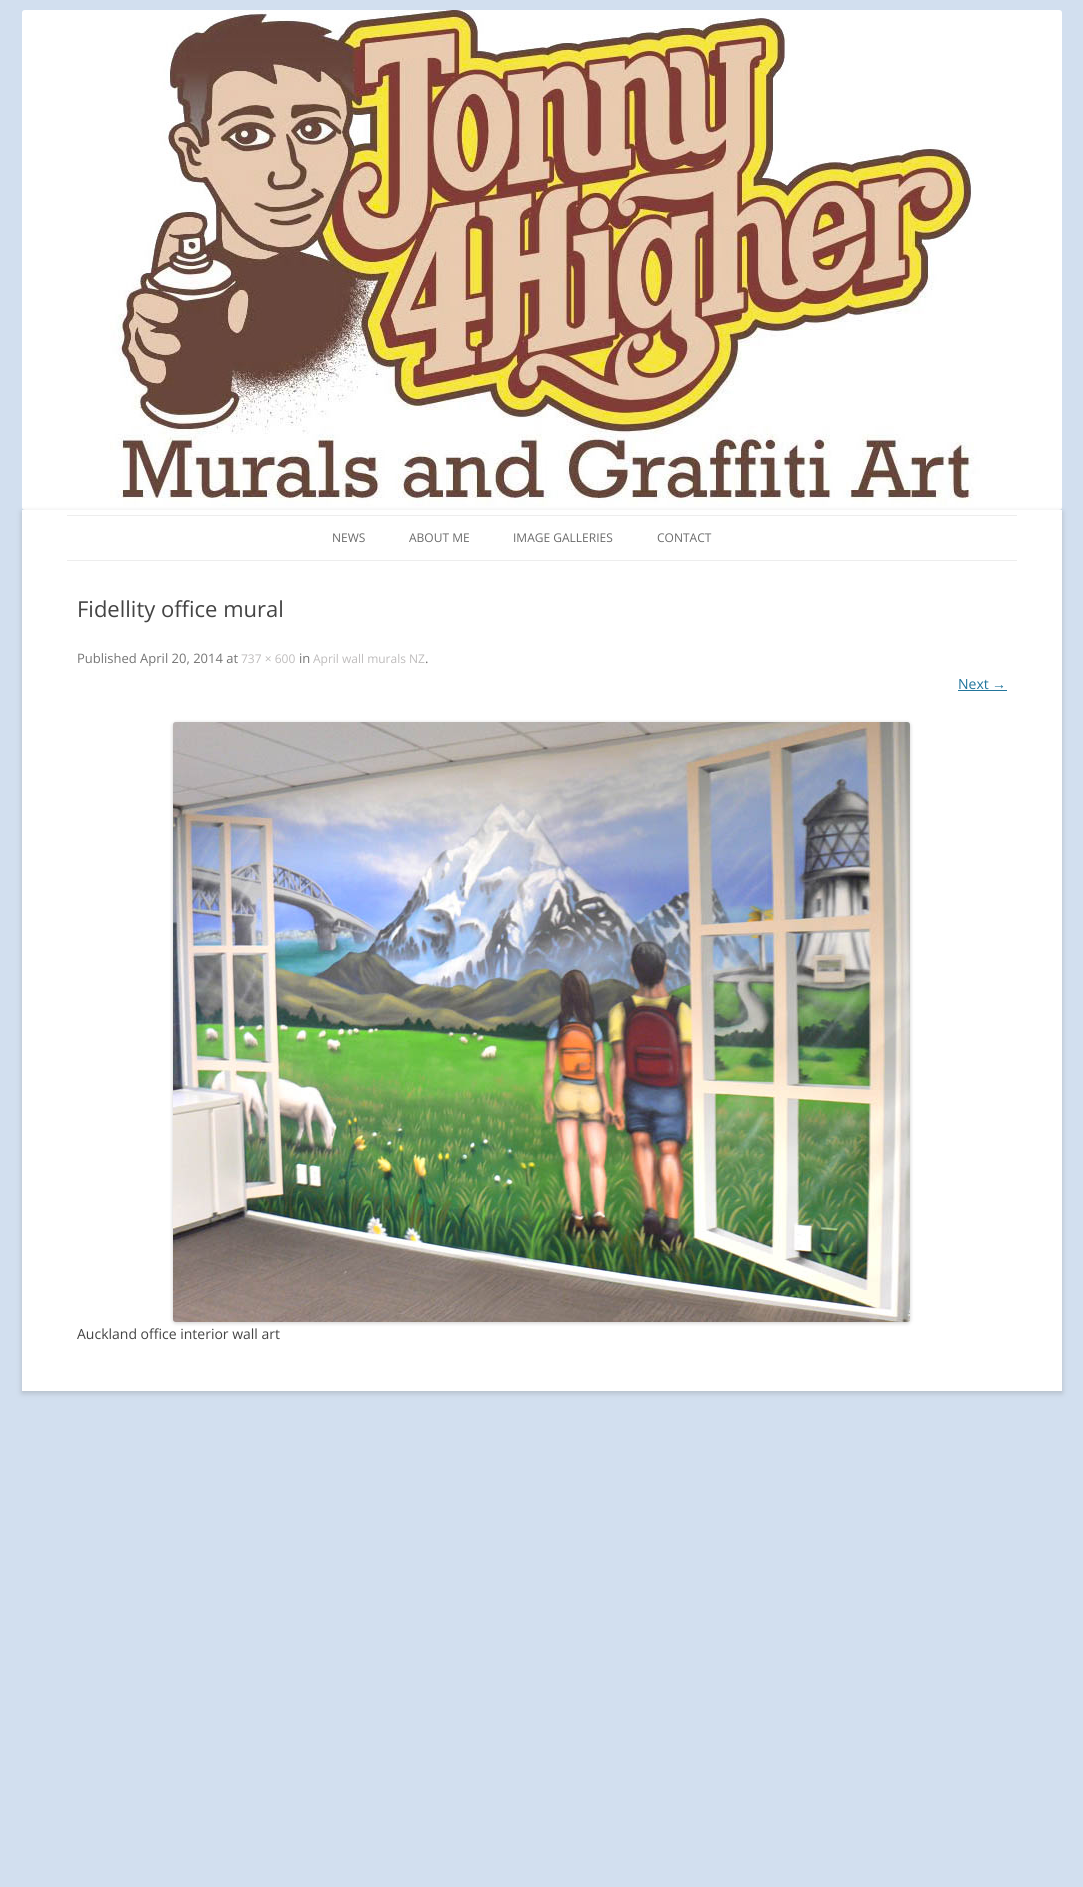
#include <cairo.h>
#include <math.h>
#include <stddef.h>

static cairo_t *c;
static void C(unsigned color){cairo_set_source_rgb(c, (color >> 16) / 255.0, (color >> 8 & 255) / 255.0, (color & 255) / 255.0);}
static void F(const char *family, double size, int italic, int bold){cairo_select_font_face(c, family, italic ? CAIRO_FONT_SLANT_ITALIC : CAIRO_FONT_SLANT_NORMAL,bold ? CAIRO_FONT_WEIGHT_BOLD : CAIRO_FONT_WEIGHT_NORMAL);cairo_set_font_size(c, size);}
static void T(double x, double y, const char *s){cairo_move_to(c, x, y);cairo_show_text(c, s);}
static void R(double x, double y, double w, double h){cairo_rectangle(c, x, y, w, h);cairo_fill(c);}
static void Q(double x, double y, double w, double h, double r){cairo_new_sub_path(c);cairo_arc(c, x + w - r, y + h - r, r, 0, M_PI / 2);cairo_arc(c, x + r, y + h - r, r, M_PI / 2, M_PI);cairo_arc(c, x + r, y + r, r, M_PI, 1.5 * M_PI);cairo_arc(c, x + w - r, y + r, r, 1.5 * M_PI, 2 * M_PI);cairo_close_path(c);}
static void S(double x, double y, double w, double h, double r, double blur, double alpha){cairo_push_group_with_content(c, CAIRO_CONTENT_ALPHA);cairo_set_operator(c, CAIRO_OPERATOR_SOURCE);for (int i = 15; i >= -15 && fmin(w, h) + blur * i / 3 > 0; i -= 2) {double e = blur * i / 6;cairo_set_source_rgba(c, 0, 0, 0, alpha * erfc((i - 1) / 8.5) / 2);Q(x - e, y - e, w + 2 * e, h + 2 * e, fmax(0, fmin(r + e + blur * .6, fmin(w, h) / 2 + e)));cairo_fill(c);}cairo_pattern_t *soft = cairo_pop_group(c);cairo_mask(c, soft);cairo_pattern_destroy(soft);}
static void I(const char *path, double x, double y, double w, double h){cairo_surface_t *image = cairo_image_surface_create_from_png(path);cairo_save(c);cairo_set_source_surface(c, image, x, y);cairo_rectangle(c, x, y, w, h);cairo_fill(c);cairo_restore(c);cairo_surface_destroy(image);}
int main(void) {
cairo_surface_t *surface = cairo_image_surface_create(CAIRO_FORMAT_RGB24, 1083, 1887);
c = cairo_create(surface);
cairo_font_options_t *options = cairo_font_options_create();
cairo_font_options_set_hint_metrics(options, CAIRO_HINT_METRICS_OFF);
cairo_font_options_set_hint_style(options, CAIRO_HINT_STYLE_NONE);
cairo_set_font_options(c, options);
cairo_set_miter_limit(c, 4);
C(0xd2dfef);
cairo_paint(c);
I("1.png",22,10,1040,500);
C(0x646464);
S(22,512,1040,881,0,3,.3);
C(0xffffff);
R(22,510,1040,881);
C(0xededed);
R(67,515,950,1);
R(67,560,950,1);
F("Open Sans",12,0,0);
C(0x6a6a6a);
T(332,542,"NEWS");
T(409,542,"ABOUT ME");
T(513,542,"IMAGE GALLERIES");
T(657,542,"CONTACT");
F("Open Sans",22,0,0);
C(0x444444);
T(77,617,"Fidellity office mural");
F("Open Sans",13,0,0);
C(0x757575);
T(77,663,"Published April 20, 2014 at");
F("Open Sans",12,0,0);
C(0xbebcbc);
T(241,663,"737 × 600");
F("Open Sans",13,0,0);
C(0x757575);
T(299,663,"in");
F("Open Sans",12,0,0);
C(0xbebcbc);
T(313,663,"April wall murals NZ");
F("Open Sans",13,0,0);
C(0x757575);
T(425,663,".");
F("Open Sans",14,0,0);
C(0x21759b);
T(958,689,"Next");
F("Liberation Sans",14,0,0);
T(992,689,"→");
R(958,690,49,1);
C(0x000000);
S(173,723,737,600,3,2,.2);
I("2.png",173,722,737,600);
F("Open Sans",14,0,0);
C(0x444444);
T(77,1339,"Auckland office interior wall art");
cairo_surface_write_to_png(surface, "o.png");
cairo_font_options_destroy(options);
cairo_destroy(c);
cairo_surface_destroy(surface);
return 0;
}
